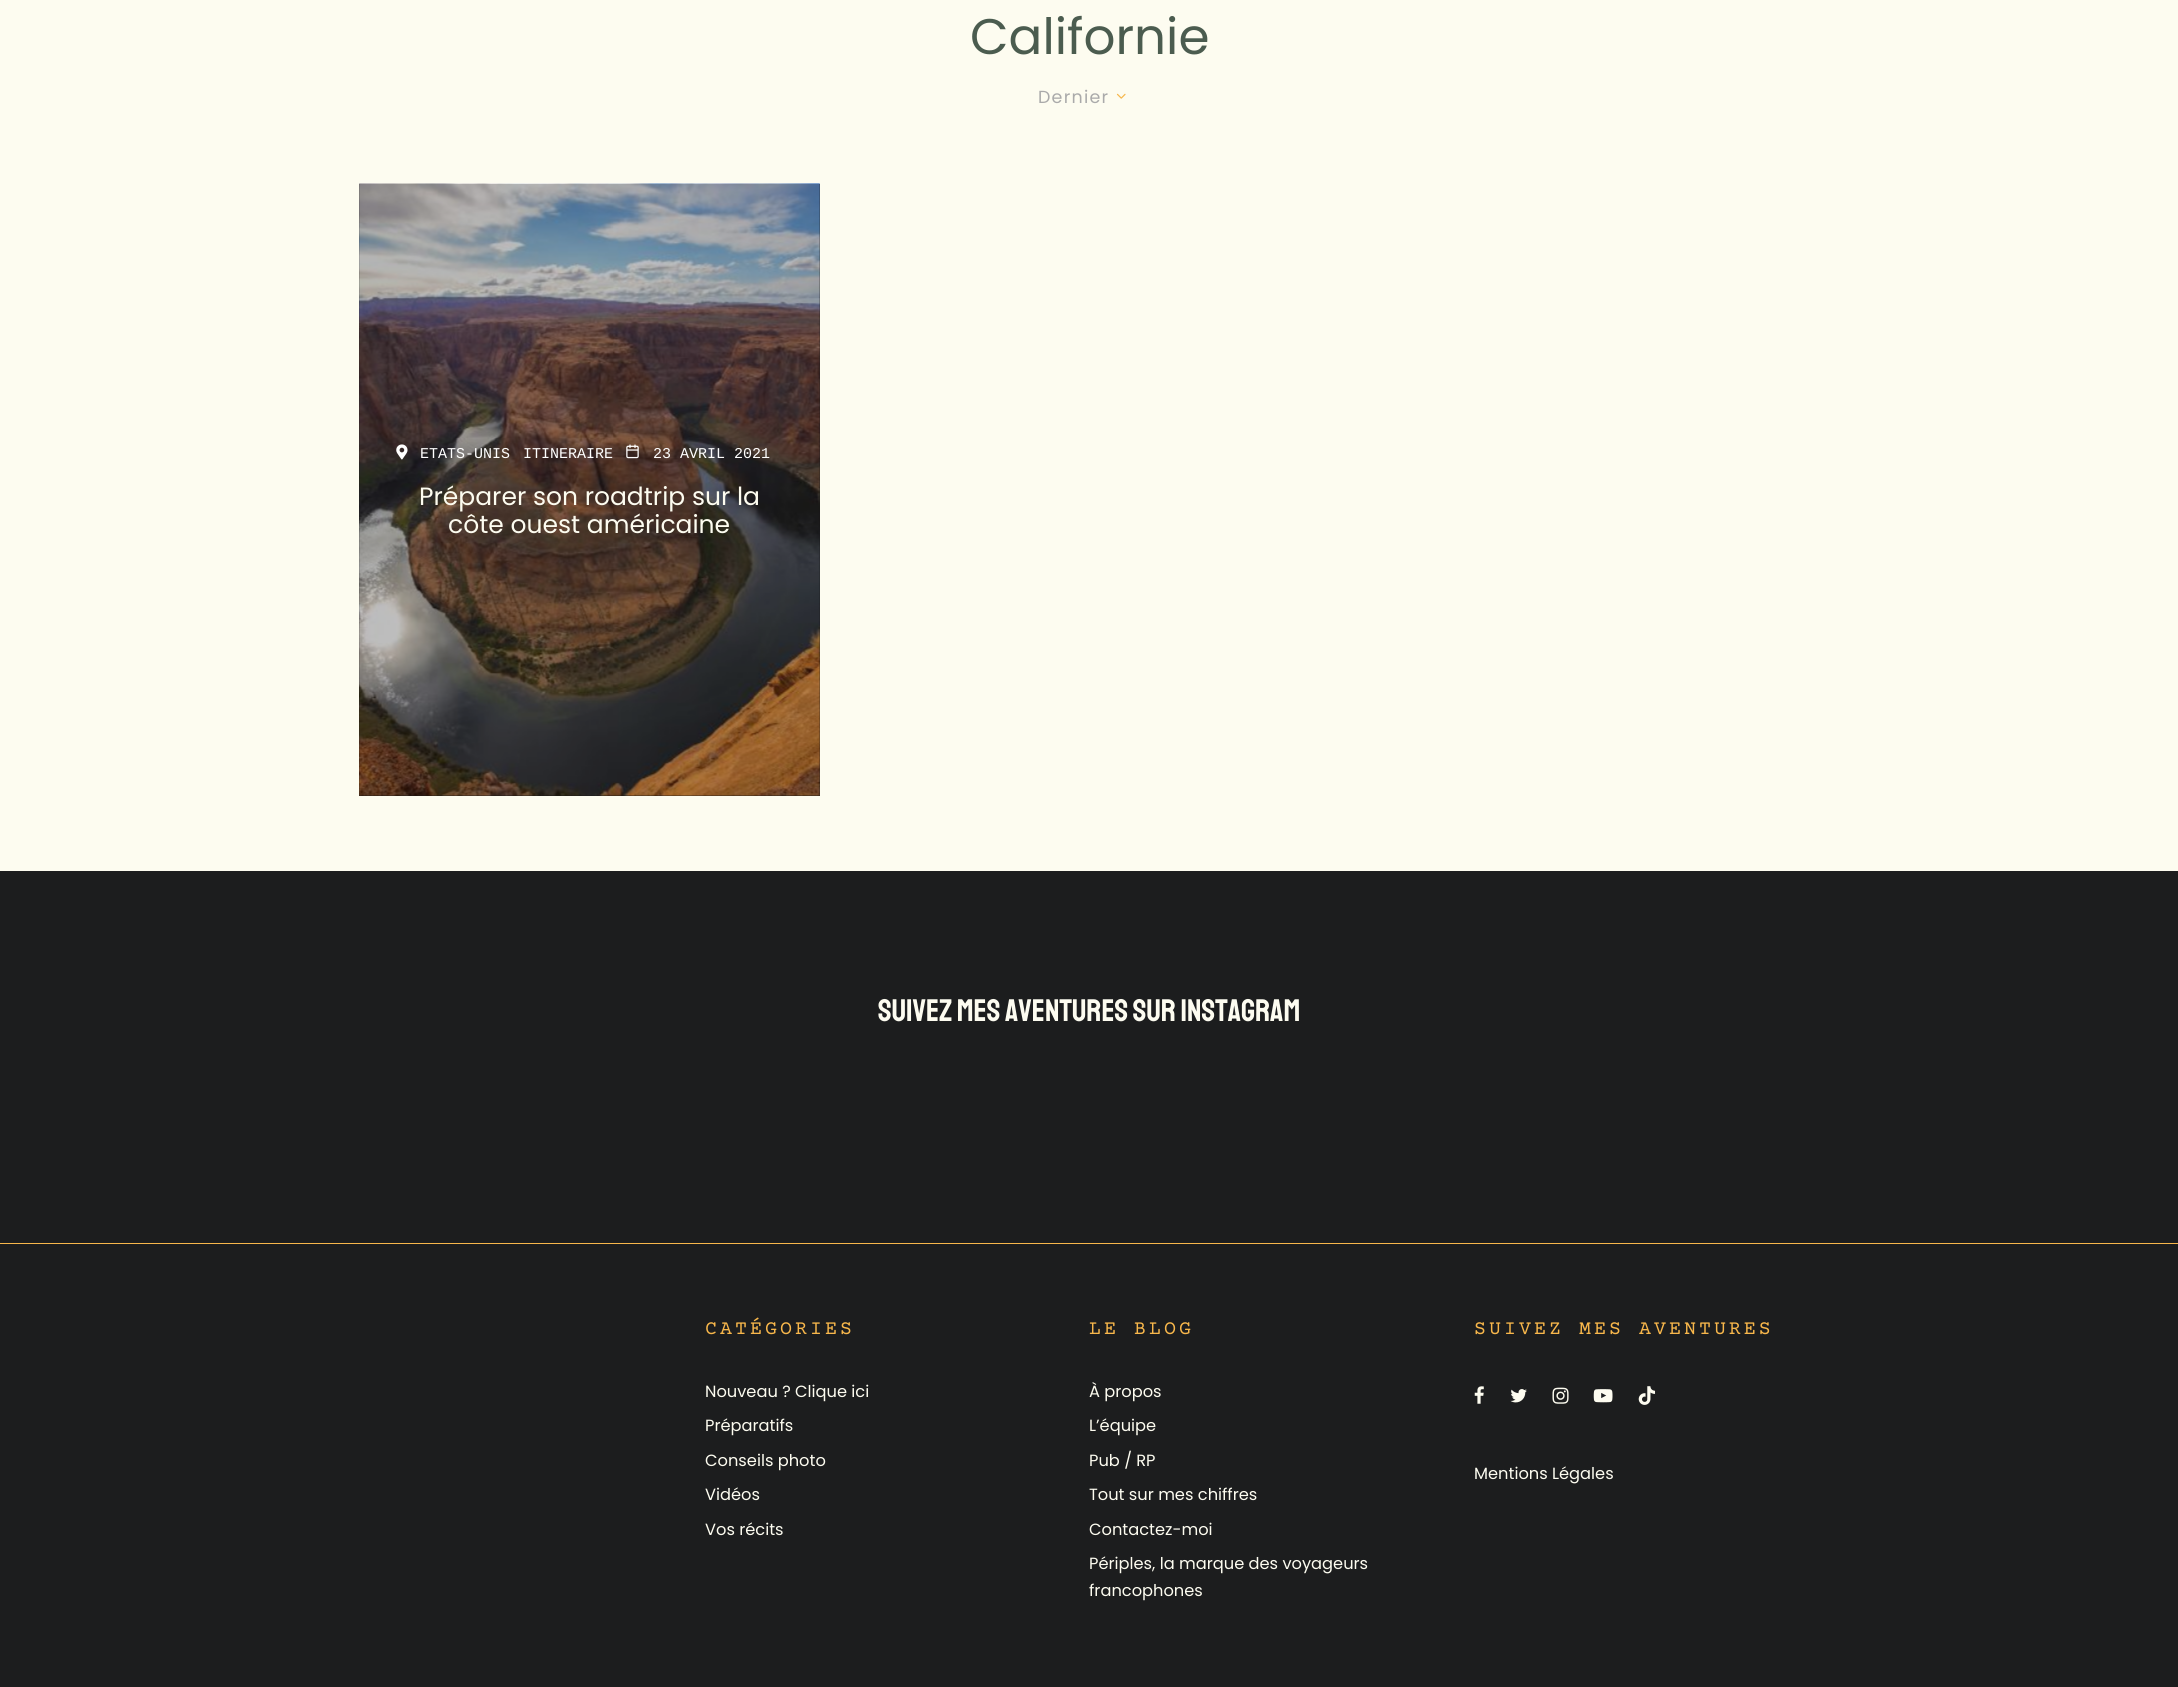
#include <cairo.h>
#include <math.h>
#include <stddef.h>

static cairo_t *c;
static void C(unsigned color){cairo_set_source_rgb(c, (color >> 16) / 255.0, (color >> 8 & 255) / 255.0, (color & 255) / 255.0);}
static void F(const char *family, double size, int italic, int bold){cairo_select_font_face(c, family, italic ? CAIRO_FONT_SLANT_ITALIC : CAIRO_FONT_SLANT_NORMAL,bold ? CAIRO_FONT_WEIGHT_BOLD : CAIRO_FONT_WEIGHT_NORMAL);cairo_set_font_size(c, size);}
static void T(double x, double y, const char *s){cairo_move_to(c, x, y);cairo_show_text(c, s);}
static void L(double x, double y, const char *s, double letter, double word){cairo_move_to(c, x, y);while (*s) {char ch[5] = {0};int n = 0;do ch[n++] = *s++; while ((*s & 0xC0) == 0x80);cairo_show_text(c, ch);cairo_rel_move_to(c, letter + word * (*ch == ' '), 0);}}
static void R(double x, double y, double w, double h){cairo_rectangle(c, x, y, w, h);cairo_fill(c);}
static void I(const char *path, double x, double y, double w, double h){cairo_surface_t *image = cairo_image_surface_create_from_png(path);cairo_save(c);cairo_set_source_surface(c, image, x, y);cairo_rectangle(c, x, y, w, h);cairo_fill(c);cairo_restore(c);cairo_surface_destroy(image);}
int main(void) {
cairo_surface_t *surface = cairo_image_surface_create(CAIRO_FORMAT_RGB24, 2178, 1687);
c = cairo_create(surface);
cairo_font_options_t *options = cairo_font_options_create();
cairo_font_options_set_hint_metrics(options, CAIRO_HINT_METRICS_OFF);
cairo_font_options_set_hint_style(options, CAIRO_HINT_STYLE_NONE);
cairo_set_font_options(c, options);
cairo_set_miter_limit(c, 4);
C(0xfdfcf0);
cairo_paint(c);
F("Poppins",50,0,0);
C(0x4b5c4f);
T(970,54,"Californie");
F("Poppins",17.5,0,0);
C(0xaaaaaa);
L(1038,103,"Dernier",1.25,0);
I("1.png",1116,93,10,6);
C(0x161616);
R(359,184,461,612);
I("2.png",359,183,461,613);
I("3.png",396,444,12,16);
F("Liberation Mono",15,0,0);
C(0xffffff);
T(420,458,"ETATS-UNIS");
T(523,458,"ITINERAIRE");
I("4.png",626,444,13,15);
T(653,458,"23 AVRIL 2021");
F("Poppins",25,0,0);
C(0xfdfcf0);
T(419,505,"Préparer son roadtrip sur la");
T(448,533,"côte ouest américaine");
C(0x1c1d1e);
R(0,871,2178,372);
F("Staatliches",31.25,0,0);
C(0xfdfcf0);
T(878,1021,"SUIVEZ MES AVENTURES SUR INSTAGRAM");
C(0x1c1d1e);
R(0,1244,2178,443);
C(0xf8b74b);
R(0,1243,2178,1);
F("Courier Prime",20,0,0);
L(705,1334,"CATÉGORIES",3,0);
F("Poppins",16.25,0,0);
C(0xfdfcf0);
T(705,1397,"Nouveau ? Clique ici");
T(705,1431,"Préparatifs");
T(705,1466,"Conseils photo");
T(705,1500,"Vidéos");
T(705,1535,"Vos récits");
F("Courier Prime",20,0,0);
C(0xf8b74b);
L(1089,1334,"LE BLOG",3,0);
F("Poppins",16.25,0,0);
C(0xfdfcf0);
T(1089,1397,"À propos");
T(1089,1431,"L’équipe");
T(1089,1466,"Pub / RP");
T(1089,1500,"Tout sur mes chiffres");
T(1089,1535,"Contactez-moi");
T(1089,1569,"Périples, la marque des voyageurs");
T(1089,1596,"francophones");
F("Courier Prime",20,0,0);
C(0xf8b74b);
L(1474,1334,"SUIVEZ MES AVENTURES",3,0);
I("5.png",1474,1386,10,18);
I("6.png",1510,1389,17,14);
I("7.png",1552,1387,17,17);
I("8.png",1593,1389,20,14);
I("9.png",1638,1386,18,19);
F("Poppins",16.25,0,0);
C(0xfdfcf0);
T(1474,1479,"Mentions Légales");
cairo_surface_write_to_png(surface, "o.png");
cairo_font_options_destroy(options);
cairo_destroy(c);
cairo_surface_destroy(surface);
return 0;
}
